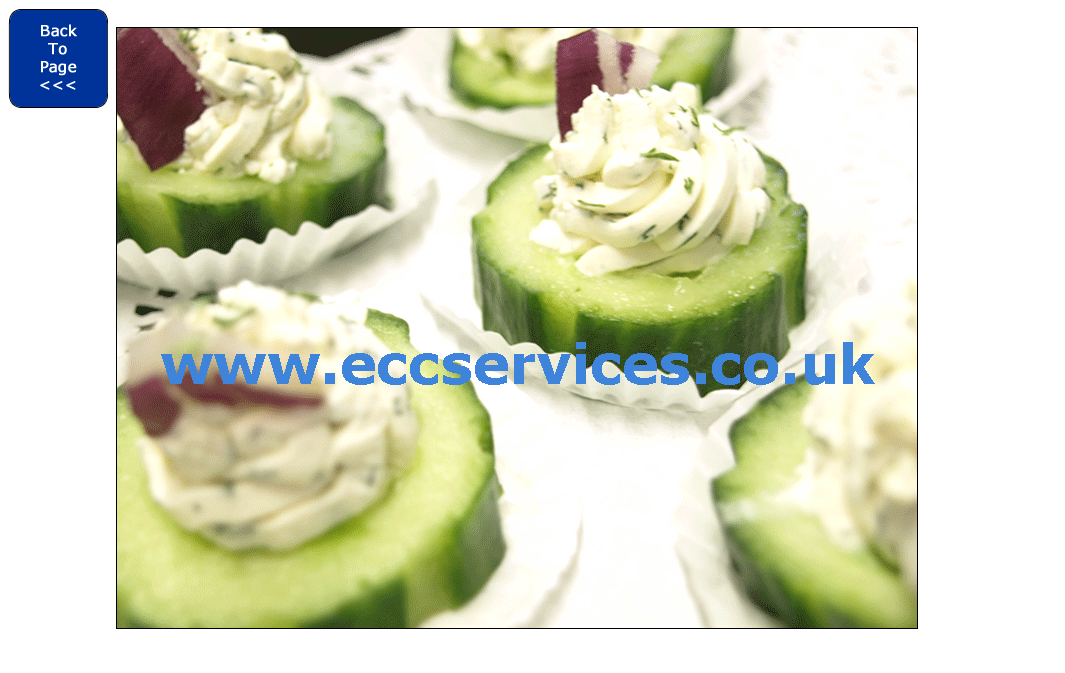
#include <cairo.h>
#include <math.h>
#include <stddef.h>

static cairo_t *c;
static void C(unsigned color){cairo_set_source_rgb(c, (color >> 16) / 255.0, (color >> 8 & 255) / 255.0, (color & 255) / 255.0);}
static void I(const char *path, double x, double y, double w, double h){cairo_surface_t *image = cairo_image_surface_create_from_png(path);cairo_save(c);cairo_set_source_surface(c, image, x, y);cairo_rectangle(c, x, y, w, h);cairo_fill(c);cairo_restore(c);cairo_surface_destroy(image);}
int main(void) {
cairo_surface_t *surface = cairo_image_surface_create(CAIRO_FORMAT_RGB24, 1065, 673);
c = cairo_create(surface);
cairo_font_options_t *options = cairo_font_options_create();
cairo_font_options_set_hint_metrics(options, CAIRO_HINT_METRICS_OFF);
cairo_font_options_set_hint_style(options, CAIRO_HINT_STYLE_NONE);
cairo_set_font_options(c, options);
cairo_set_miter_limit(c, 4);
C(0xffffff);
cairo_paint(c);
I("1.png",8,9,100,99);
cairo_rectangle(c,116.5,27.5,801,601);
C(0x000000);
cairo_set_line_width(c,1);
cairo_stroke(c);
I("2.png",117,28,800,600);
cairo_surface_write_to_png(surface, "o.png");
cairo_font_options_destroy(options);
cairo_destroy(c);
cairo_surface_destroy(surface);
return 0;
}
